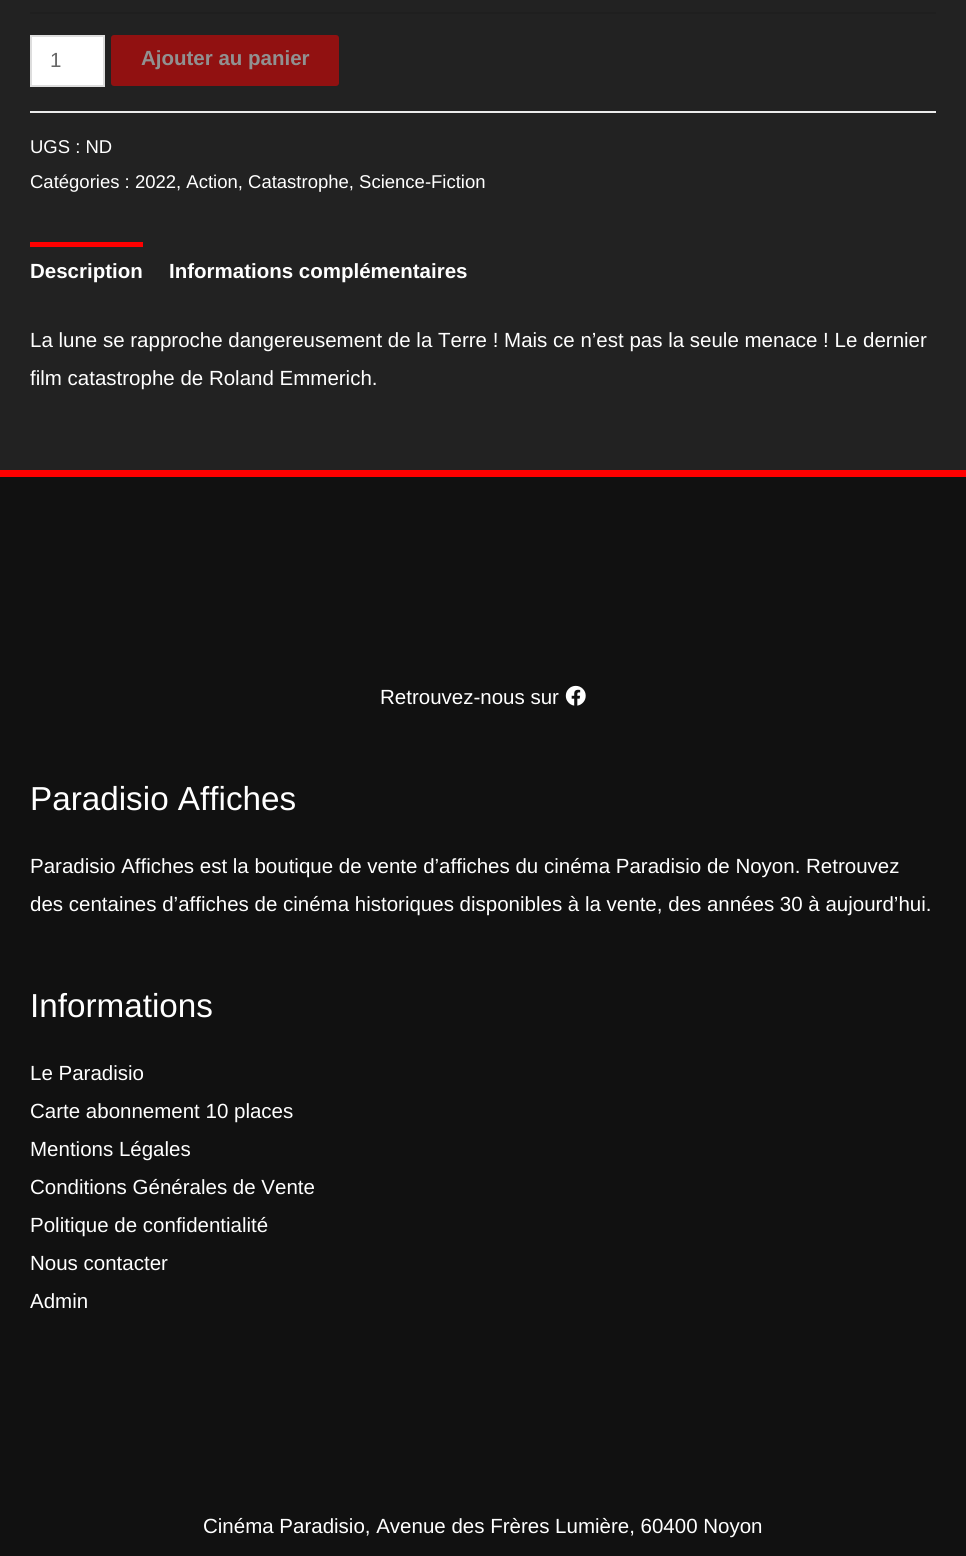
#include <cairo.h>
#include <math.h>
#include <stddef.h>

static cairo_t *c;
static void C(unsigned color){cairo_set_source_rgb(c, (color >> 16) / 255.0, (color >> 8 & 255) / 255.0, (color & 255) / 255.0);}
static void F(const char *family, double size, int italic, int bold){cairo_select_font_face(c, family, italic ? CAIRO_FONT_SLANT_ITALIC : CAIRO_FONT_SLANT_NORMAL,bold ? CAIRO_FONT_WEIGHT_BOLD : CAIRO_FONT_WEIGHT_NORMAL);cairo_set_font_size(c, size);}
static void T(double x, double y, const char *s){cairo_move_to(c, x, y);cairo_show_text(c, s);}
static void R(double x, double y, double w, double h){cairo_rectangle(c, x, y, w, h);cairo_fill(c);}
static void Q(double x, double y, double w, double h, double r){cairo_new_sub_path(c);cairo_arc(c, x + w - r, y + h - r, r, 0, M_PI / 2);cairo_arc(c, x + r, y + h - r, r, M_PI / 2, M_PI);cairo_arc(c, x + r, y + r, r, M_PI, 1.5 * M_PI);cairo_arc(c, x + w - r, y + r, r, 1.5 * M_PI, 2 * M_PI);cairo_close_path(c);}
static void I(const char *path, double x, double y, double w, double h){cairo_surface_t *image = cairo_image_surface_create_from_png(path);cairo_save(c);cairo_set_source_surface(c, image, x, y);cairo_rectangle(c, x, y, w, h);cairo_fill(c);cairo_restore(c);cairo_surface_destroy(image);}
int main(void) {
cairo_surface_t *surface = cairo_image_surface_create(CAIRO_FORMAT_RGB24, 966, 1556);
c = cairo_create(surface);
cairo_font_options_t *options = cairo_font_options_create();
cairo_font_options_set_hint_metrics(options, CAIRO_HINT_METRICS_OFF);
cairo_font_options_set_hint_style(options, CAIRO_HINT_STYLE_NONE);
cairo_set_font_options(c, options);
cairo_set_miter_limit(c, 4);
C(0x222222);
cairo_paint(c);
C(0x1f1f1f);
R(30,12,906,2);
C(0xffffff);
cairo_rectangle(c,31,36,73,50);
cairo_fill_preserve(c);
C(0xdddddd);
cairo_stroke(c);
F("Liberation Sans",20.5,0,0);
C(0x666666);
T(50,67,"1");
C(0x911111);
Q(111,35,228,51,3);
cairo_fill(c);
F("Liberation Sans",20.5,0,1);
C(0x919191);
T(141,65,"Ajouter au panier");
C(0xebebeb);
R(30,111,906,2);
F("Liberation Sans",18.5,0,0);
C(0xffffff);
T(30,153,"UGS : ND");
T(30,188,"Catégories : 2022, Action, Catastrophe, Science-Fiction");
C(0xff0000);
R(30,242,113,5);
F("Liberation Sans",20.5,0,1);
C(0xffffff);
T(30,278,"Description");
T(169,278,"Informations complémentaires");
F("Liberation Sans",20.5,0,0);
T(30,347,"La lune se rapproche dangereusement de la Terre ! Mais ce n’est pas la seule menace ! Le dernier");
T(30,385,"film catastrophe de Roland Emmerich.");
C(0x111111);
R(0,477,966,1079);
C(0xff0000);
R(0,470,966,7);
C(0xffffff);
T(380,704,"Retrouvez-nous sur");
I("1.png",565,685,21,21);
F("Liberation Sans",33.25,0,0);
T(30,810,"Paradisio Affiches");
F("Liberation Sans",20.5,0,0);
T(30,873,"Paradisio Affiches est la boutique de vente d’affiches du cinéma Paradisio de Noyon. Retrouvez");
T(30,911,"des centaines d’affiches de cinéma historiques disponibles à la vente, des années 30 à aujourd’hui.");
F("Liberation Sans",33.25,0,0);
T(30,1017,"Informations");
F("Liberation Sans",20.5,0,0);
T(30,1080,"Le Paradisio");
T(30,1118,"Carte abonnement 10 places");
T(30,1156,"Mentions Légales");
T(30,1194,"Conditions Générales de Vente");
T(30,1232,"Politique de confidentialité");
T(30,1270,"Nous contacter");
T(30,1308,"Admin");
T(203,1533,"Cinéma Paradisio, Avenue des Frères Lumière, 60400 Noyon");
cairo_surface_write_to_png(surface, "o.png");
cairo_font_options_destroy(options);
cairo_destroy(c);
cairo_surface_destroy(surface);
return 0;
}
